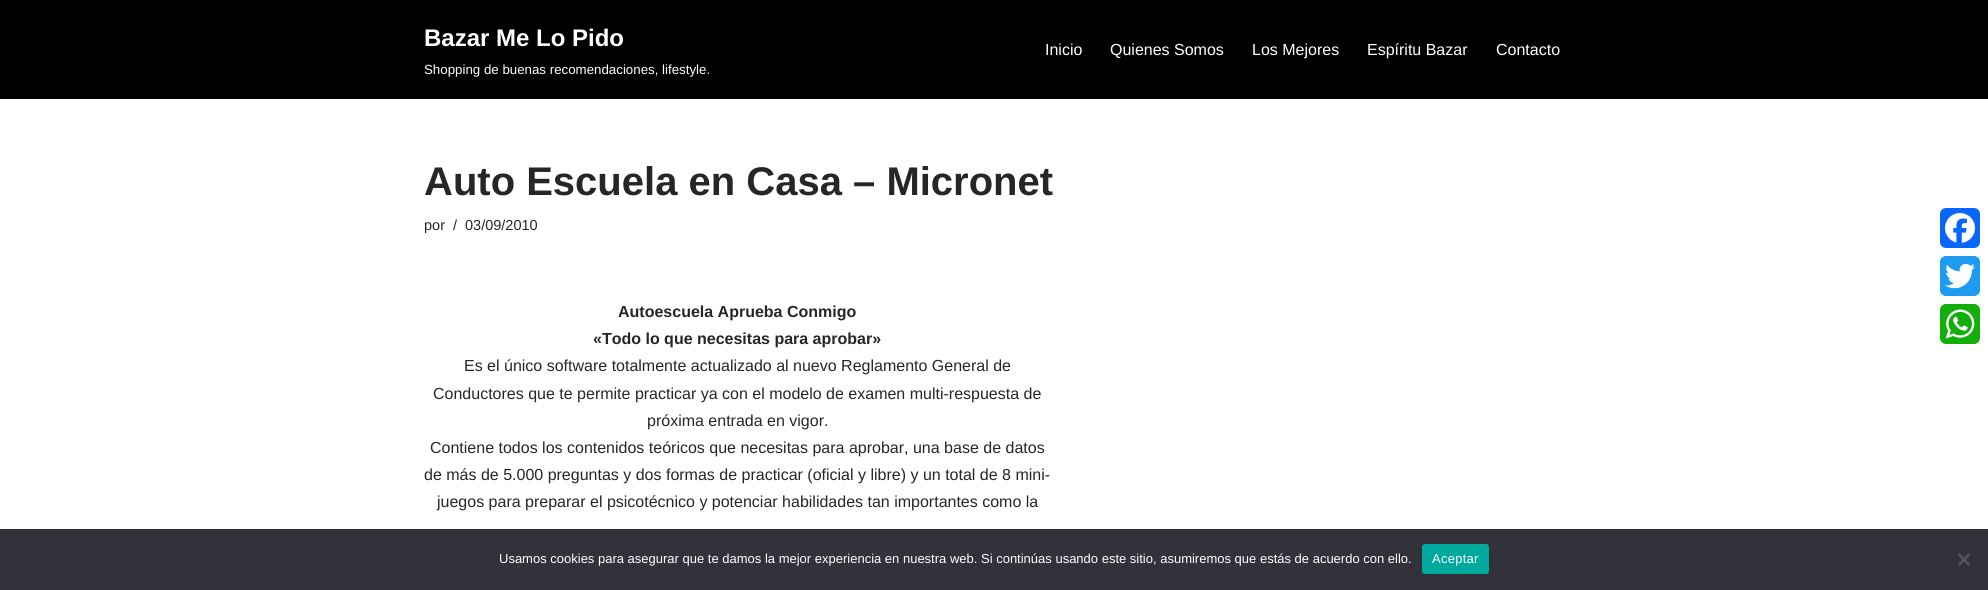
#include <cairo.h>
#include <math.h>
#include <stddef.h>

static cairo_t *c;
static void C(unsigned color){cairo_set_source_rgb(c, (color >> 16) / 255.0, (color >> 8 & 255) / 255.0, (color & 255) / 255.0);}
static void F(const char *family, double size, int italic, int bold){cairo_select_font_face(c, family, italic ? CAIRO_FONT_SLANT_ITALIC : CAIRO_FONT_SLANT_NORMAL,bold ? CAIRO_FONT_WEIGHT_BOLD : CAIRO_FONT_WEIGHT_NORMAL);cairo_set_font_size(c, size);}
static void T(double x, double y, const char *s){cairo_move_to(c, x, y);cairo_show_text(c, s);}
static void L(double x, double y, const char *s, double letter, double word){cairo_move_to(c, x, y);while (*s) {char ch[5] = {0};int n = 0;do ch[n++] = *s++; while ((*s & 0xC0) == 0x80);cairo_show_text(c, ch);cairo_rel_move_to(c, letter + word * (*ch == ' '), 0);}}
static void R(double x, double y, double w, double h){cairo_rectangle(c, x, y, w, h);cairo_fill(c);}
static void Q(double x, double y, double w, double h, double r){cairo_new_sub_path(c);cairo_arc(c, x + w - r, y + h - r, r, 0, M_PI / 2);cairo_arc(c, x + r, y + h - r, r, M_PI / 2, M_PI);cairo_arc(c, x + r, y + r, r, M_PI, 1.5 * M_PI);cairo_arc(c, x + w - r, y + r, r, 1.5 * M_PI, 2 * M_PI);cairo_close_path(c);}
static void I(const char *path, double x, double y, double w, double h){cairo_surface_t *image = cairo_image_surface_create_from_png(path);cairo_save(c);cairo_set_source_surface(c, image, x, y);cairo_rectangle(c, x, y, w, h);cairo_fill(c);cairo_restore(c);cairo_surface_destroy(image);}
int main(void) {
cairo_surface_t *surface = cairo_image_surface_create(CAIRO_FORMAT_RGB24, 1988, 590);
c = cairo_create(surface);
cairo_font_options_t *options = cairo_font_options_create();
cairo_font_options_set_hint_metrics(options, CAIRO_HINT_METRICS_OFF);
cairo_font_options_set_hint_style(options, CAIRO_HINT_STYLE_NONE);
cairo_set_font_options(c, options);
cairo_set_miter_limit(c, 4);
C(0xffffff);
cairo_paint(c);
C(0x000000);
R(0,0,1988,99);
F("Liberation Sans",24,0,1);
C(0xffffff);
T(424,46,"Bazar Me Lo Pido");
F("Liberation Sans",13.3,0,0);
T(424,74,"Shopping de buenas recomendaciones, lifestyle.");
F("Liberation Sans",16,0,0);
T(1045,55,"Inicio");
T(1110,55,"Quienes Somos");
T(1252,55,"Los Mejores");
T(1367,55,"Espíritu Bazar");
T(1496,55,"Contacto");
F("Liberation Sans",40,0,1);
C(0x272626);
T(424,195,"Auto Escuela en Casa – Micronet");
F("Liberation Sans",14.5,0,0);
T(424,230,"por");
T(453,230,"/");
T(465,230,"03/09/2010");
F("Liberation Sans",16,0,1);
T(618,317,"Autoescuela Aprueba Conmigo");
T(593,344,"«Todo lo que necesitas para aprobar»");
F("Liberation Sans",16,0,0);
T(464,371,"Es el único software totalmente actualizado al nuevo Reglamento General de");
T(433,399,"Conductores que te permite practicar ya con el modelo de examen multi-respuesta de");
T(647,426,"próxima entrada en vigor.");
T(430,453,"Contiene todos los contenidos teóricos que necesitas para aprobar, una base de datos");
T(424,480,"de más de 5.000 preguntas y dos formas de practicar (oficial y libre) y un total de 8 mini-");
T(437,507,"juegos para preparar el psicotécnico y potenciar habilidades tan importantes como la");
C(0x0866ff);
Q(1940,208,40,40,6);
cairo_fill(c);
I("1.png",1945,213,30,30);
C(0x1d9bf0);
Q(1940,256,40,40,6);
cairo_fill(c);
I("2.png",1945,263,30,26);
C(0x12af0a);
Q(1940,304,40,40,6);
cairo_fill(c);
I("3.png",1945,309,30,30);
C(0x32323a);
R(0,529,1988,61);
F("Liberation Sans",13,0,0);
C(0xffffff);
T(499,563,"Usamos cookies para asegurar que te damos la mejor experiencia en nuestra web. Si continúas usando este sitio, asumiremos que estás de acuerdo con ello.");
C(0x00a99d);
Q(1422,544,67,30,3);
cairo_fill(c);
C(0xffffff);
L(1432,563,"Aceptar",.25,0);
C(0x59595d);
cairo_new_path(c);
cairo_move_to(c,1968.5,553.5);
cairo_line_to(c,1970,555);
cairo_line_to(c,1959.5,566);
cairo_line_to(c,1958,564.5);
cairo_close_path(c);
cairo_fill(c);
cairo_new_path(c);
cairo_move_to(c,1958,555);
cairo_line_to(c,1959.5,553.5);
cairo_line_to(c,1970,564.5);
cairo_line_to(c,1968.5,566);
cairo_close_path(c);
cairo_fill(c);
cairo_surface_write_to_png(surface, "o.png");
cairo_font_options_destroy(options);
cairo_destroy(c);
cairo_surface_destroy(surface);
return 0;
}
